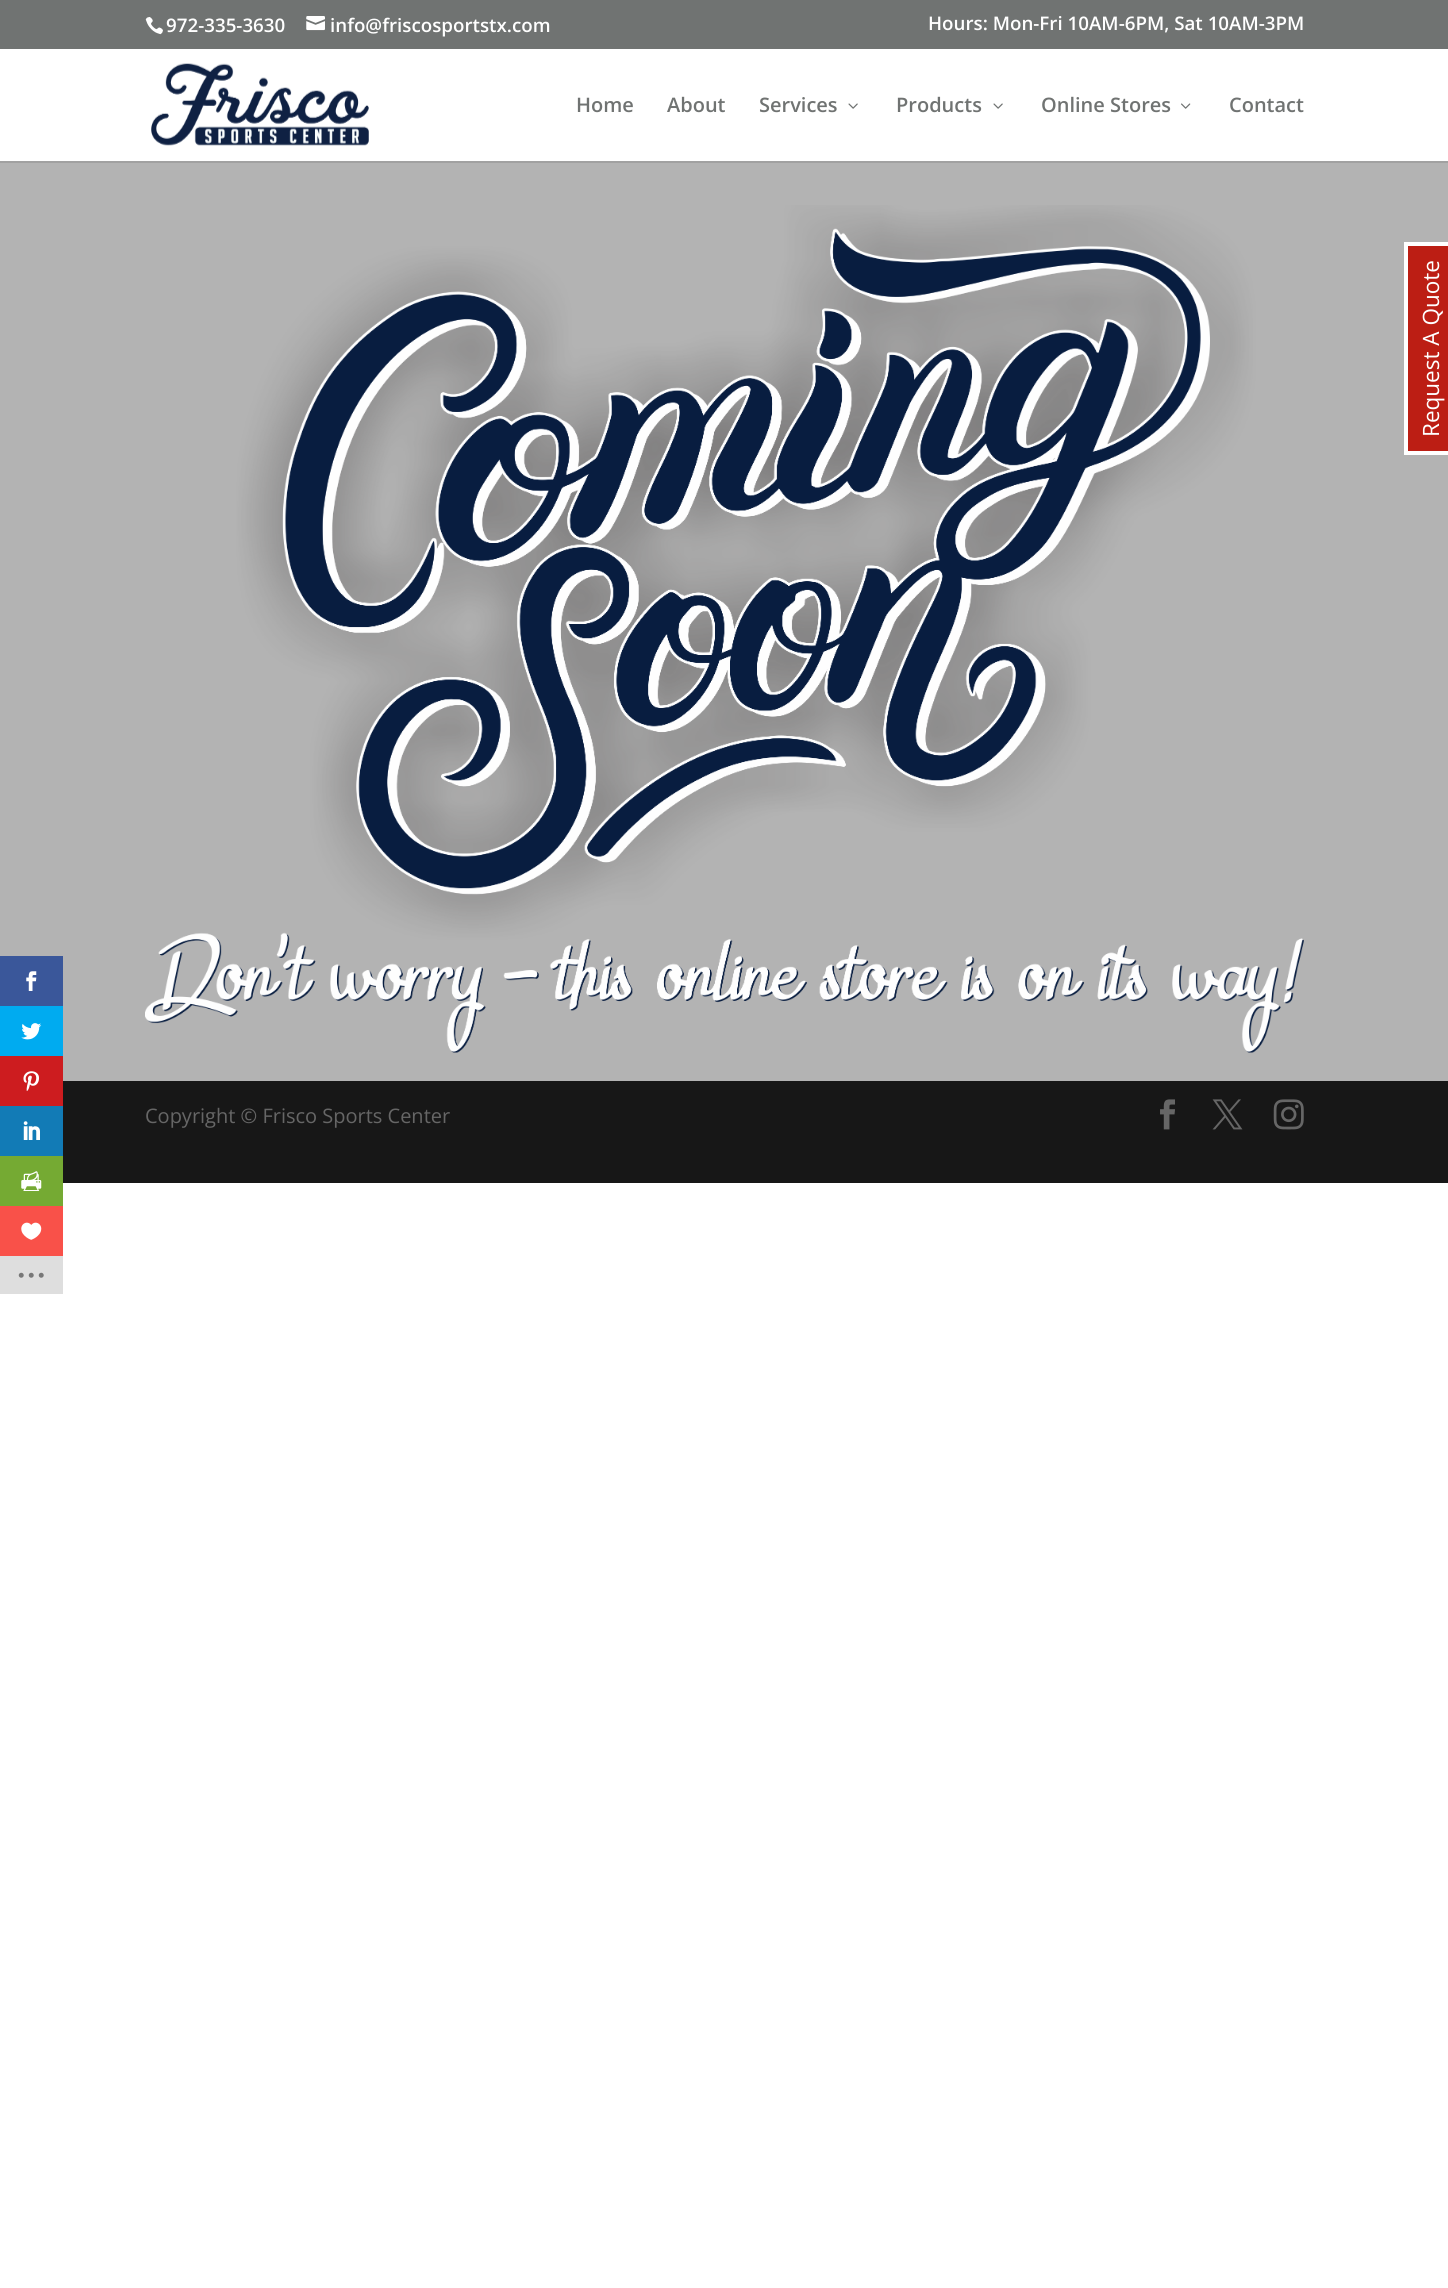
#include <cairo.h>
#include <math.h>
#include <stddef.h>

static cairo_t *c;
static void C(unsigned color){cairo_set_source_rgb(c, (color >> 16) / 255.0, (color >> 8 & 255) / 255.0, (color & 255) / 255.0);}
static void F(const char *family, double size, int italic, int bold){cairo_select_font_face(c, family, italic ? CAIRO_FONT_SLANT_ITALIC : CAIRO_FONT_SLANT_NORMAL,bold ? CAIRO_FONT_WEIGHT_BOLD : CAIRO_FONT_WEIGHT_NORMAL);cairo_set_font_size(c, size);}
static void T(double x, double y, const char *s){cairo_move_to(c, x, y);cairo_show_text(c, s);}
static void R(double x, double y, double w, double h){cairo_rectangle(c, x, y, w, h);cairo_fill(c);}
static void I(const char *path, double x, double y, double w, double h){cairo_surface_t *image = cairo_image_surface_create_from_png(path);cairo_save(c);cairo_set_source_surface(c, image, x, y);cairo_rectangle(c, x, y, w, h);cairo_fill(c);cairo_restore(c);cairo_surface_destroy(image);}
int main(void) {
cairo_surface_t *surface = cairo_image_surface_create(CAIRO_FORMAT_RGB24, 1448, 2288);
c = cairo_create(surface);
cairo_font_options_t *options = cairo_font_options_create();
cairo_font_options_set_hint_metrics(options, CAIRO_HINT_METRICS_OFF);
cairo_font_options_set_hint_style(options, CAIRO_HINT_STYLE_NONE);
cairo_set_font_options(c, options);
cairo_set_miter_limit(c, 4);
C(0xffffff);
cairo_paint(c);
C(0x707372);
R(0,0,1448,49);
I("1.png",145,17,18,18);
F("Open Sans SemiBold",18.75,0,0);
C(0xffffff);
T(166,32,"972-335-3630");
I("2.png",306,16,19,15);
T(330,32,"info@friscosportstx.com");
T(928,30,"Hours: Mon-Fri 10AM-6PM, Sat 10AM-3PM");
C(0xa1a1a1);
cairo_new_path(c);
cairo_move_to(c,0,161);
cairo_line_to(c,0,163);
cairo_line_to(c,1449,163);
cairo_line_to(c,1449,50);
cairo_line_to(c,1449,161);
cairo_close_path(c);
cairo_fill(c);
I("3.png",151,63,218,83);
F("Open Sans SemiBold",20,0,0);
C(0x707372);
T(576,112,"Home");
T(667,112,"About");
T(759,112,"Services");
I("4.png",848,103,10,6);
T(896,112,"Products");
I("4.png",993,103,10,6);
T(1041,112,"Online Stores");
I("5.png",1181,103,10,6);
T(1229,112,"Contact");
C(0xb3b3b3);
R(0,163,1448,918);
I("6.png",145,205,1159,848);
C(0x171717);
R(63,1081,1385,102);
F("Open Sans",20,0,0);
C(0x666666);
T(145,1123,"Copyright © Frisco Sports Center");
I("7.png",1160,1099,15,31);
I("8.png",1212,1099,31,31);
I("9.png",1273,1099,31,31);
C(0xbc1e14);
R(1408,246,40,205);
C(0xffffff);
R(1404,242,4,213);
R(1404,242,44,4);
R(1404,451,44,4);
F("Open Sans",22.5,0,0);
cairo_save(c);
cairo_translate(c,1439,437);
cairo_rotate(c,-90 * M_PI / 180);
T(0,0,"Request A Quote");
cairo_restore(c);
C(0x3a579a);
R(0,956,63,50);
I("10.png",26,971,11,20);
C(0x00abf0);
R(0,1006,63,50);
I("11.png",21,1023,21,17);
C(0xcd1c1f);
R(0,1056,63,50);
I("12.png",23,1071,16,20);
C(0x127bb6);
R(0,1106,63,50);
I("13.png",23,1121,17,19);
C(0x75aa33);
R(0,1156,63,50);
I("14.png",21,1171,21,20);
C(0xf95149);
R(0,1206,63,50);
I("15.png",21,1222,21,18);
C(0xdedede);
R(0,1256,63,38);
I("16.png",18,1272,26,6);
cairo_surface_write_to_png(surface, "o.png");
cairo_font_options_destroy(options);
cairo_destroy(c);
cairo_surface_destroy(surface);
return 0;
}
